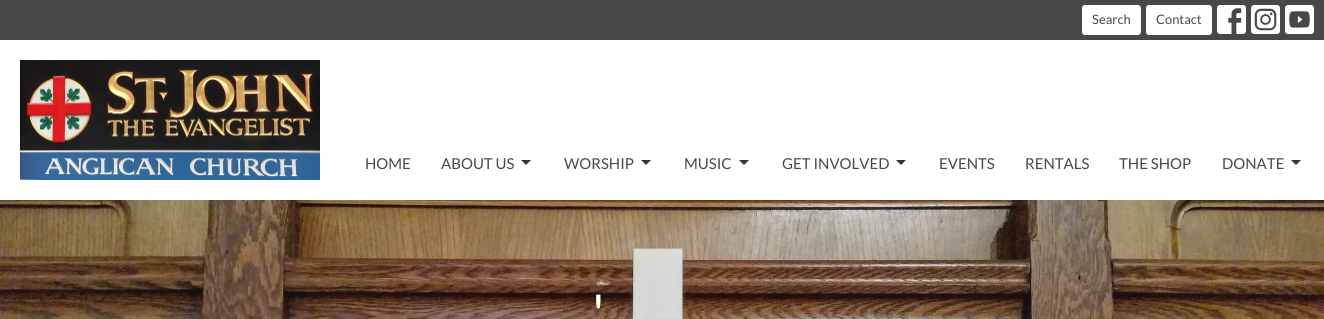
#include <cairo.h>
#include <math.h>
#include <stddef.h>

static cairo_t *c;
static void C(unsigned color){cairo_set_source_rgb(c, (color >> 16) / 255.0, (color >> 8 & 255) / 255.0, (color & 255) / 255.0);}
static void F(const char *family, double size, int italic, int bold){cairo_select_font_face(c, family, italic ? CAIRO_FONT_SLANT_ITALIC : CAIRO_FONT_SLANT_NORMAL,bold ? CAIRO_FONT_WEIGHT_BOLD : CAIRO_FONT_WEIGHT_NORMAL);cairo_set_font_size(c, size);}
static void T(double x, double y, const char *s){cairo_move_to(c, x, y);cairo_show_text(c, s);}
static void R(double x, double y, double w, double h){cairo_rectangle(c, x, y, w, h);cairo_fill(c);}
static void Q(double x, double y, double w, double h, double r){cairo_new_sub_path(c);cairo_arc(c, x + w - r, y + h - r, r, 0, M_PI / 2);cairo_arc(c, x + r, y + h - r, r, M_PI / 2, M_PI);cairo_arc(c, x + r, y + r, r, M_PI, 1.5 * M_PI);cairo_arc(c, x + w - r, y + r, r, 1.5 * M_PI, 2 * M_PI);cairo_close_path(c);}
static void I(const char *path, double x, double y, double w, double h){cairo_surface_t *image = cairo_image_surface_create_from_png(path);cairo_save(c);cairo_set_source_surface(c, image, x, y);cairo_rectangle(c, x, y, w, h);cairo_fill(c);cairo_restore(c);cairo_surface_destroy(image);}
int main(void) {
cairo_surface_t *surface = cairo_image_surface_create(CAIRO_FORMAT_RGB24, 1324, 319);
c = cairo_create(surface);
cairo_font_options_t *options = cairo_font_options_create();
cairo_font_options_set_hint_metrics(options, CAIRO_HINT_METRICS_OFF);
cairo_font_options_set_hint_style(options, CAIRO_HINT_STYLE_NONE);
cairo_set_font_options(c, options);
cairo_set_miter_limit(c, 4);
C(0xffffff);
cairo_paint(c);
C(0x484848);
R(0,0,1324,40);
C(0xffffff);
Q(1082,5,59,30,3);
cairo_fill(c);
F("Lato",13,0,0);
C(0x484848);
T(1092,24,"Search");
C(0xffffff);
Q(1146,5,66,30,3);
cairo_fill(c);
C(0x484848);
T(1156,24,"Contact");
I("1.png",1217,5,29,29);
I("2.png",1251,5,29,29);
I("3.png",1285,5,29,29);
I("4.png",20,60,300,120);
F("Lato",15,0,0);
T(365,169,"HOME");
T(441,169,"ABOUT US");
C(0x333333);
cairo_new_path(c);
cairo_move_to(c,521,160);
cairo_line_to(c,526,165);
cairo_line_to(c,531,160);
cairo_close_path(c);
cairo_fill(c);
C(0x484848);
T(564,169,"WORSHIP");
C(0x333333);
cairo_new_path(c);
cairo_move_to(c,641,160);
cairo_line_to(c,646,165);
cairo_line_to(c,651,160);
cairo_close_path(c);
cairo_fill(c);
C(0x484848);
T(684,169,"MUSIC");
C(0x333333);
cairo_new_path(c);
cairo_move_to(c,739,160);
cairo_line_to(c,744,165);
cairo_line_to(c,749,160);
cairo_close_path(c);
cairo_fill(c);
C(0x484848);
T(782,169,"GET INVOLVED");
C(0x333333);
cairo_new_path(c);
cairo_move_to(c,896,160);
cairo_line_to(c,901,165);
cairo_line_to(c,906,160);
cairo_close_path(c);
cairo_fill(c);
C(0x484848);
T(939,169,"EVENTS");
T(1025,169,"RENTALS");
T(1119,169,"THE SHOP");
T(1222,169,"DONATE");
C(0x333333);
cairo_new_path(c);
cairo_move_to(c,1291,160);
cairo_line_to(c,1296,165);
cairo_line_to(c,1301,160);
cairo_close_path(c);
cairo_fill(c);
I("5.png",0,200,1324,119);
F("Lato",55,0,0);
C(0xffffff);
T(592,334,"'");
cairo_surface_write_to_png(surface, "o.png");
cairo_font_options_destroy(options);
cairo_destroy(c);
cairo_surface_destroy(surface);
return 0;
}
